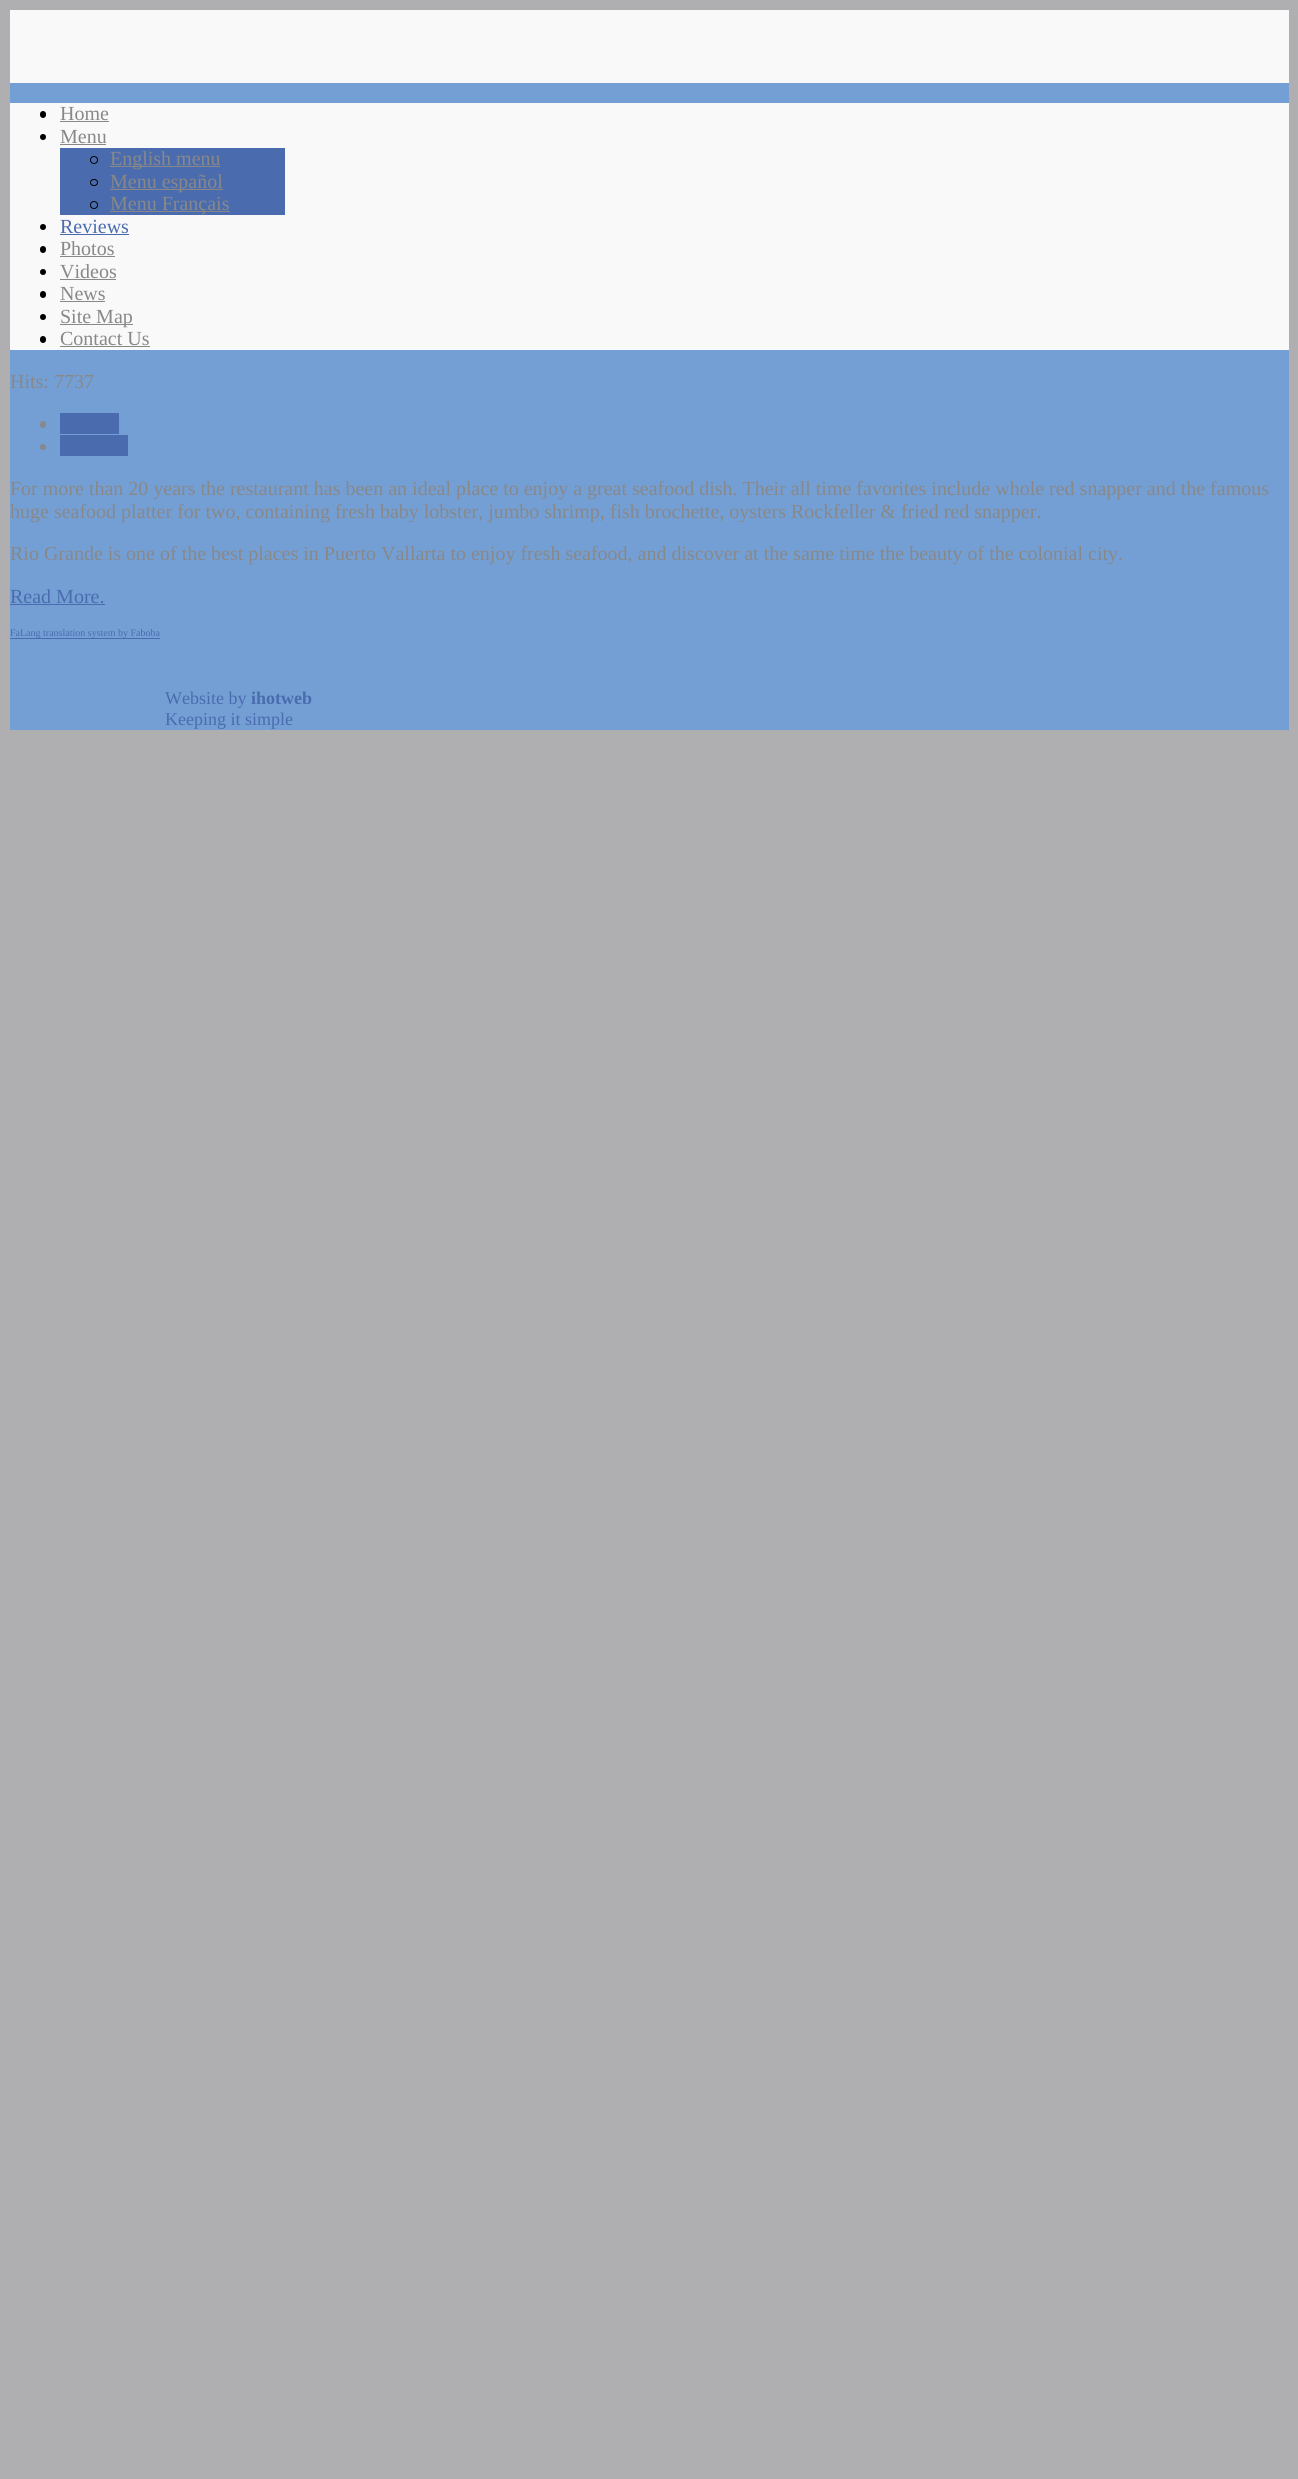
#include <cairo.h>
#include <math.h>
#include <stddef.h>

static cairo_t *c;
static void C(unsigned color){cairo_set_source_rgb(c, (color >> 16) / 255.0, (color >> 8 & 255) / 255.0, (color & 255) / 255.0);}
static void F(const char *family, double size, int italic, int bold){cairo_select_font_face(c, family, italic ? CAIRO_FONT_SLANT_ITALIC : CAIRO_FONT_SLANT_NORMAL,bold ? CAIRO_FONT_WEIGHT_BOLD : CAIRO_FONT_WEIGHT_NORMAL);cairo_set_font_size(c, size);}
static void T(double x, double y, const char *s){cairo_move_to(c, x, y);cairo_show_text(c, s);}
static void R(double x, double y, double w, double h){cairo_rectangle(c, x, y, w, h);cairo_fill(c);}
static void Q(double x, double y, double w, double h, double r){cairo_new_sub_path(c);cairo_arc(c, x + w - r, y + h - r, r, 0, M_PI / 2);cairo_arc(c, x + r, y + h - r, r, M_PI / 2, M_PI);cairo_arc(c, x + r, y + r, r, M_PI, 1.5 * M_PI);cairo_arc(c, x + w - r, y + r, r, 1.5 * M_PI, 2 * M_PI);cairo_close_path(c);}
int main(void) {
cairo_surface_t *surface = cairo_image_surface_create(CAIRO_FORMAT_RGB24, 1298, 2479);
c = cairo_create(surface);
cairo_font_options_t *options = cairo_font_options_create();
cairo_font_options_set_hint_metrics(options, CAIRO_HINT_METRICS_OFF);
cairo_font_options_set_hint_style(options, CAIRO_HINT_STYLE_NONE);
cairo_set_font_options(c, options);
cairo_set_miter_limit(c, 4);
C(0xafafb1);
cairo_paint(c);
C(0x749fd5);
R(10,83,1279,647);
C(0xf9f9f9);
R(10,10,1279,73);
R(10,103,1279,247);
C(0x000000);
Q(40,111,6,7,3);
cairo_fill(c);
F("Liberation Serif",20,0,0);
C(0x888888);
T(60,120,"Home");
R(60,121,49,1);
C(0x000000);
cairo_new_path(c);
cairo_arc(c,43,137,3,0,2 * M_PI);
cairo_fill(c);
C(0x888888);
T(60,143,"Menu");
R(60,144,46,1);
C(0x4a6cae);
R(60,148,225,67);
cairo_new_path(c);
cairo_arc(c,94,160,3.5,0,2 * M_PI);
C(0x000000);
cairo_set_line_width(c,1);
cairo_stroke(c);
C(0x888888);
R(110,166,110,1);
T(110,165,"English menu");
Q(90.5,179.5,7,6,3);
C(0x000000);
cairo_stroke(c);
C(0x888888);
R(110,189,113,1);
T(110,188,"Menu español");
cairo_new_path(c);
cairo_arc(c,94,205,3.5,0,2 * M_PI);
C(0x000000);
cairo_stroke(c);
C(0x888888);
R(110,211,120,1);
T(110,210,"Menu Français");
C(0x000000);
cairo_new_path(c);
cairo_arc(c,43,227,3,0,2 * M_PI);
cairo_fill(c);
C(0x4a6cae);
T(60,233,"Reviews");
R(60,234,69,1);
C(0x000000);
Q(40,246,6,7,3);
cairo_fill(c);
C(0x888888);
T(60,255,"Photos");
R(60,256,55,1);
C(0x000000);
cairo_new_path(c);
cairo_arc(c,43,272,3,0,2 * M_PI);
cairo_fill(c);
C(0x888888);
T(60,278,"Videos");
R(60,279,56,1);
C(0x000000);
Q(40,291,6,7,3);
cairo_fill(c);
C(0x888888);
T(60,300,"News");
R(60,301,45,1);
C(0x000000);
cairo_new_path(c);
cairo_arc(c,43,317,3,0,2 * M_PI);
cairo_fill(c);
C(0x888888);
R(60,324,73,1);
T(60,323,"Site Map");
C(0x000000);
Q(40,336,6,7,3);
cairo_fill(c);
C(0x888888);
T(60,345,"Contact Us");
R(60,346,90,1);
T(10,388,"Hits: 7737");
Q(40,421,6,7,3);
cairo_fill(c);
C(0x4a6cae);
R(60,413,59,21);
C(0x888888);
cairo_arc(c,43,447,3,0,2 * M_PI);
cairo_fill(c);
C(0x4a6cae);
R(60,435,68,21);
C(0x888888);
T(10,495,"For more than 20 years the restaurant has been an ideal place to enjoy a great seafood dish. Their all time favorites include whole red snapper and the famous");
T(10,518,"huge seafood platter for two, containing fresh baby lobster, jumbo shrimp, fish brochette, oysters Rockfeller & fried red snapper.");
T(10,560,"Rio Grande is one of the best places in Puerto Vallarta to enjoy fresh seafood, and discover at the same time the beauty of the colonial city.");
C(0x4a6cae);
T(10,603,"Read More.");
R(10,604,95,1);
R(10,638,150,1);
F("Liberation Serif",10,0,0);
T(10,636,"FaLang translation system by Faboba");
F("Liberation Serif",18,0,0);
T(165,704,"Website by");
F("Liberation Serif",18,0,1);
T(251,704,"ihotweb");
F("Liberation Serif",18,0,0);
T(165,725,"Keeping it simple");
cairo_surface_write_to_png(surface, "o.png");
cairo_font_options_destroy(options);
cairo_destroy(c);
cairo_surface_destroy(surface);
return 0;
}
